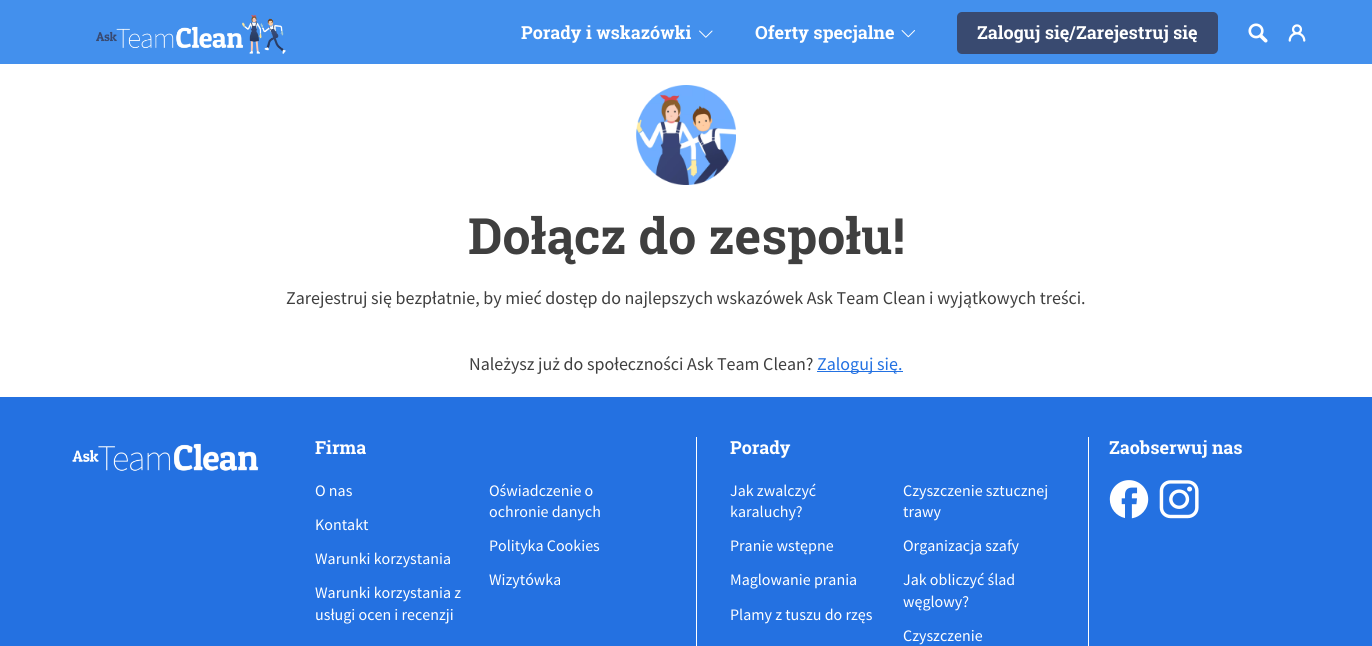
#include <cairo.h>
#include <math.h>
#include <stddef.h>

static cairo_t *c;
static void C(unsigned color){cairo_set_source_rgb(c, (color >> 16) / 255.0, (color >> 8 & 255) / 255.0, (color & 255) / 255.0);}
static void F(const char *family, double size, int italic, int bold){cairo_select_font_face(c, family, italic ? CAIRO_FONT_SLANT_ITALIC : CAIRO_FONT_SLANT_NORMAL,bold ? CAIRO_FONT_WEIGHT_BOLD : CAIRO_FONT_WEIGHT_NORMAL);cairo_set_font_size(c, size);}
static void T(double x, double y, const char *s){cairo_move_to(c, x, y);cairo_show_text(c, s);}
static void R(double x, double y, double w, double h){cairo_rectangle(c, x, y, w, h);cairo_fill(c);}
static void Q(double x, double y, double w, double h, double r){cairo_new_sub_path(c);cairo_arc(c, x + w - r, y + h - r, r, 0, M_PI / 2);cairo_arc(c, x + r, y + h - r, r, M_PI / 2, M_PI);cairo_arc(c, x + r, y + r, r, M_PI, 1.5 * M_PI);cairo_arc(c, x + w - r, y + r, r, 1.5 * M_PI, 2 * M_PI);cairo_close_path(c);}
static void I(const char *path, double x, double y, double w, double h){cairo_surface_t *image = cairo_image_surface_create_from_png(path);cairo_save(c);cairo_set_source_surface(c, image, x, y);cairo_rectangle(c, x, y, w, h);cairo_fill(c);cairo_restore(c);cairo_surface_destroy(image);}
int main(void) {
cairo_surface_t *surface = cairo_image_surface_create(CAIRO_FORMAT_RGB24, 1372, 646);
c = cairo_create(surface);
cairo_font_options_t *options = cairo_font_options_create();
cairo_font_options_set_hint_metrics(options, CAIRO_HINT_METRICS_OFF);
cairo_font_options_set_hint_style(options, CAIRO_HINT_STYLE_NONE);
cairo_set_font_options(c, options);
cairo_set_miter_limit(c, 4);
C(0xffffff);
cairo_paint(c);
C(0x4390ed);
R(0,0,1372,64);
I("1.png",96,15,190,39);
F("Roboto Slab",18,0,1);
C(0xffffff);
T(521,39,"Porady i wskazówki");
I("2.png",699,30,14,8);
T(755,39,"Oferty specjalne");
I("3.png",901,30,14,8);
C(0x394a70);
Q(957,12,261,42,5);
cairo_fill(c);
C(0xffffff);
T(977,39,"Zaloguj się/Zarejestruj się");
I("4.png",1248,23,20,20);
I("5.png",1288,24,18,18);
I("6.png",636,85,100,100);
F("Roboto Slab",50,0,1);
C(0x3f3f3f);
T(468,254,"Dołącz do zespołu!");
F("Source Sans Pro",18,0,0);
T(286,304,"Zarejestruj się bezpłatnie, by mieć dostęp do najlepszych wskazówek Ask Team Clean i wyjątkowych treści.");
T(469,370,"Należysz już do społeczności Ask Team Clean?");
C(0x2371e2);
R(817,371,86,1);
T(817,370,"Zaloguj się.");
C(0x2471e1);
R(0,397,1372,249);
I("7.png",72,443,187,28);
F("Roboto Slab",18,0,1);
C(0xffffff);
T(315,454,"Firma");
F("Source Sans Pro",16,0,0);
T(315,496,"O nas");
T(315,530,"Kontakt");
T(315,564,"Warunki korzystania");
T(315,598,"Warunki korzystania z");
T(315,620,"usługi ocen i recenzji");
T(489,496,"Oświadczenie o");
T(489,517,"ochronie danych");
T(489,551,"Polityka Cookies");
T(489,585,"Wizytówka");
R(1088,437,1,209);
R(696,437,1,209);
F("Roboto Slab",18,0,1);
T(730,454,"Porady");
F("Source Sans Pro",16,0,0);
T(730,496,"Jak zwalczyć");
T(730,517,"karaluchy?");
T(730,551,"Pranie wstępne");
T(730,585,"Maglowanie prania");
T(730,620,"Plamy z tuszu do rzęs");
T(903,496,"Czyszczenie sztucznej");
T(903,517,"trawy");
T(903,551,"Organizacja szafy");
T(903,585,"Jak obliczyć ślad");
T(903,607,"węglowy?");
T(903,641,"Czyszczenie");
F("Roboto Slab",18,0,1);
T(1109,454,"Zaobserwuj nas");
I("8.png",1109,480,40,39);
I("9.png",1159,480,40,39);
cairo_surface_write_to_png(surface, "o.png");
cairo_font_options_destroy(options);
cairo_destroy(c);
cairo_surface_destroy(surface);
return 0;
}
